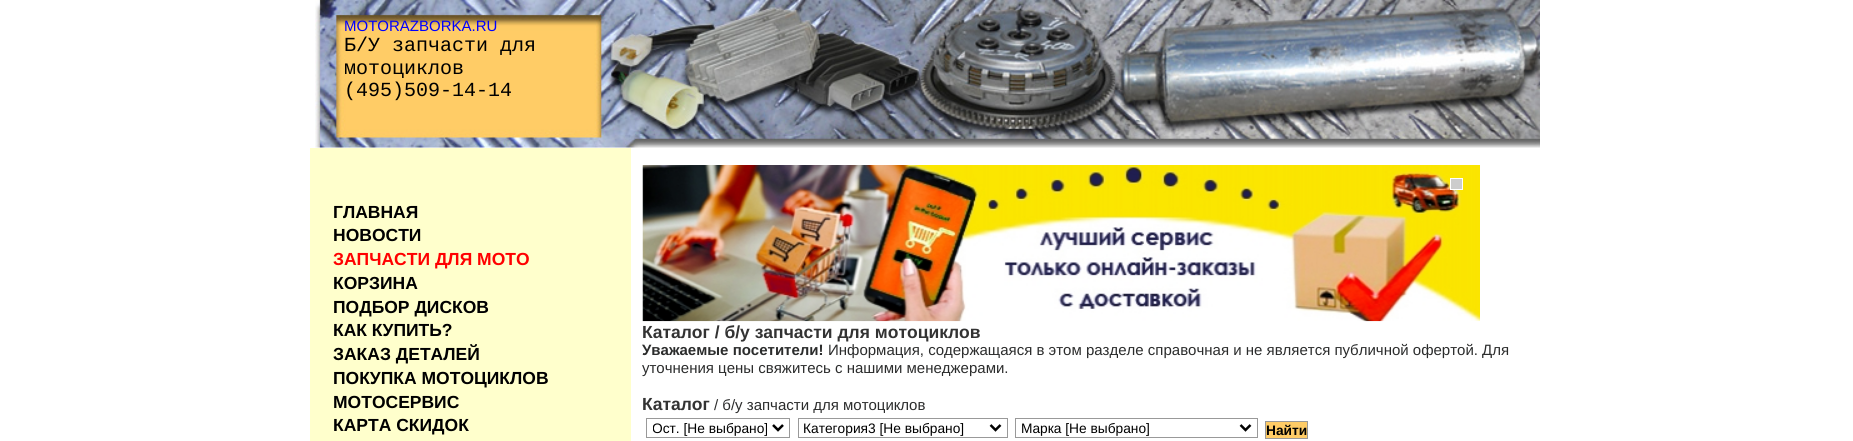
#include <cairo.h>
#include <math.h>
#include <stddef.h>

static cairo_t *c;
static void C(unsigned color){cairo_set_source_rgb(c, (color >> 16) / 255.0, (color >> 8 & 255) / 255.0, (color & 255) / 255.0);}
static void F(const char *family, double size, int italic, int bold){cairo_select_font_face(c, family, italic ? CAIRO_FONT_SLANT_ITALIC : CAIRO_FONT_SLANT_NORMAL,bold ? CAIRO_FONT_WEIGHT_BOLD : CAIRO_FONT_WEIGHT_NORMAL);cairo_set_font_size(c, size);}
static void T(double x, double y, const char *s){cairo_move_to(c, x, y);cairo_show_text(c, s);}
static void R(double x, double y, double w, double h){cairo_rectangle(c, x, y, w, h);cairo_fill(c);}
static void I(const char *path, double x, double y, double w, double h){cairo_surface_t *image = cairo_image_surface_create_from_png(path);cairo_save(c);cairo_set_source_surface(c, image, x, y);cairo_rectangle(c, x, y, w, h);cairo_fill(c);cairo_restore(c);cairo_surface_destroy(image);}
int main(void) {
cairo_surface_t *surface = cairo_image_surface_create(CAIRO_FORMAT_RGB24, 1853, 441);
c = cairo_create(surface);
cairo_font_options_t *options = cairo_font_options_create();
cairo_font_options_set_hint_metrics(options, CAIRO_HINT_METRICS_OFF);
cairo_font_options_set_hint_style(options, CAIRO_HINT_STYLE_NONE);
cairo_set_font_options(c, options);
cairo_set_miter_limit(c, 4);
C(0xffffff);
cairo_paint(c);
I("1.png",315,0,1225,148);
F("Liberation Sans",15,0,0);
C(0x0000ff);
T(344,31,"MOTORAZBORKA.RU");
F("Liberation Mono",20,0,0);
C(0x000000);
T(344,51,"Б/У запчасти для");
T(344,74,"мотоциклов");
T(344,96,"(495)509-14-14");
C(0xffffcc);
R(310,148,321,293);
F("Liberation Sans",17.5,0,1);
C(0x000000);
T(333,218,"ГЛАВНАЯ");
T(333,241,"НОВОСТИ");
C(0xff0000);
T(333,265,"ЗАПЧАСТИ ДЛЯ МОТО");
C(0x000000);
T(333,289,"КОРЗИНА");
T(333,313,"ПОДБОР ДИСКОВ");
T(333,336,"КАК КУПИТЬ?");
T(333,360,"ЗАКАЗ ДЕТАЛЕЙ");
T(333,384,"ПОКУПКА МОТОЦИКЛОВ");
T(333,408,"МОТОСЕРВИС");
T(333,431,"КАРТА СКИДОК");
I("2.png",642,165,838,157);
C(0xcccccc);
cairo_rectangle(c,1450.5,178.5,12,11);
cairo_fill_preserve(c);
C(0xffffff);
cairo_set_line_width(c,1);
cairo_stroke(c);
C(0x333333);
T(642,338,"Каталог / б/у запчасти для мотоциклов");
F("Liberation Sans",15,0,1);
C(0x2b2c2c);
T(642,355,"Уважаемые посетители!");
F("Liberation Sans",15,0,0);
T(828,355,"Информация, содержащаяся в этом разделе справочная и не является публичной офертой. Для");
T(642,373,"уточнения цены свяжитесь с нашими менеджерами.");
F("Liberation Sans",17.5,0,1);
C(0x333333);
T(642,410,"Каталог");
F("Liberation Sans",15,0,0);
C(0x2b2c2c);
T(714,410,"/ б/у запчасти для мотоциклов");
cairo_rectangle(c,646.5,418.5,143,19);
C(0x999999);
cairo_stroke(c);
cairo_new_path(c);
cairo_move_to(c,773,425);
cairo_line_to(c,778,430);
cairo_line_to(c,783,425);
C(0x000000);
cairo_set_line_width(c,2.5);
cairo_stroke(c);
cairo_save(c);
cairo_rectangle(c,653,419,116,17);
cairo_clip(c);
F("Liberation Sans",13.75,0,0);
T(652,433,"Ост. [Не выбрано]");
cairo_restore(c);
cairo_rectangle(c,798.5,418.5,209,19);
C(0x999999);
cairo_set_line_width(c,1);
cairo_stroke(c);
cairo_new_path(c);
cairo_move_to(c,990.5,425);
cairo_line_to(c,995.5,430);
cairo_line_to(c,1000.5,425);
C(0x000000);
cairo_set_line_width(c,2.5);
cairo_stroke(c);
F("Liberation Sans",13.75,0,0);
T(803,433,"Категория3 [Не выбрано]");
cairo_rectangle(c,1015.5,418.5,242,19);
C(0x999999);
cairo_set_line_width(c,1);
cairo_stroke(c);
cairo_new_path(c);
cairo_move_to(c,1240.5,425);
cairo_line_to(c,1245.5,430);
cairo_line_to(c,1250.5,425);
C(0x000000);
cairo_set_line_width(c,2.5);
cairo_stroke(c);
T(1021,433,"Марка [Не выбрано]");
C(0xffcc66);
cairo_rectangle(c,1265.5,421.5,42,17);
cairo_fill_preserve(c);
C(0x999999);
cairo_set_line_width(c,1);
cairo_stroke(c);
F("Liberation Sans",13.75,0,1);
C(0x000000);
T(1266,435,"Найти");
cairo_surface_write_to_png(surface, "o.png");
cairo_font_options_destroy(options);
cairo_destroy(c);
cairo_surface_destroy(surface);
return 0;
}
